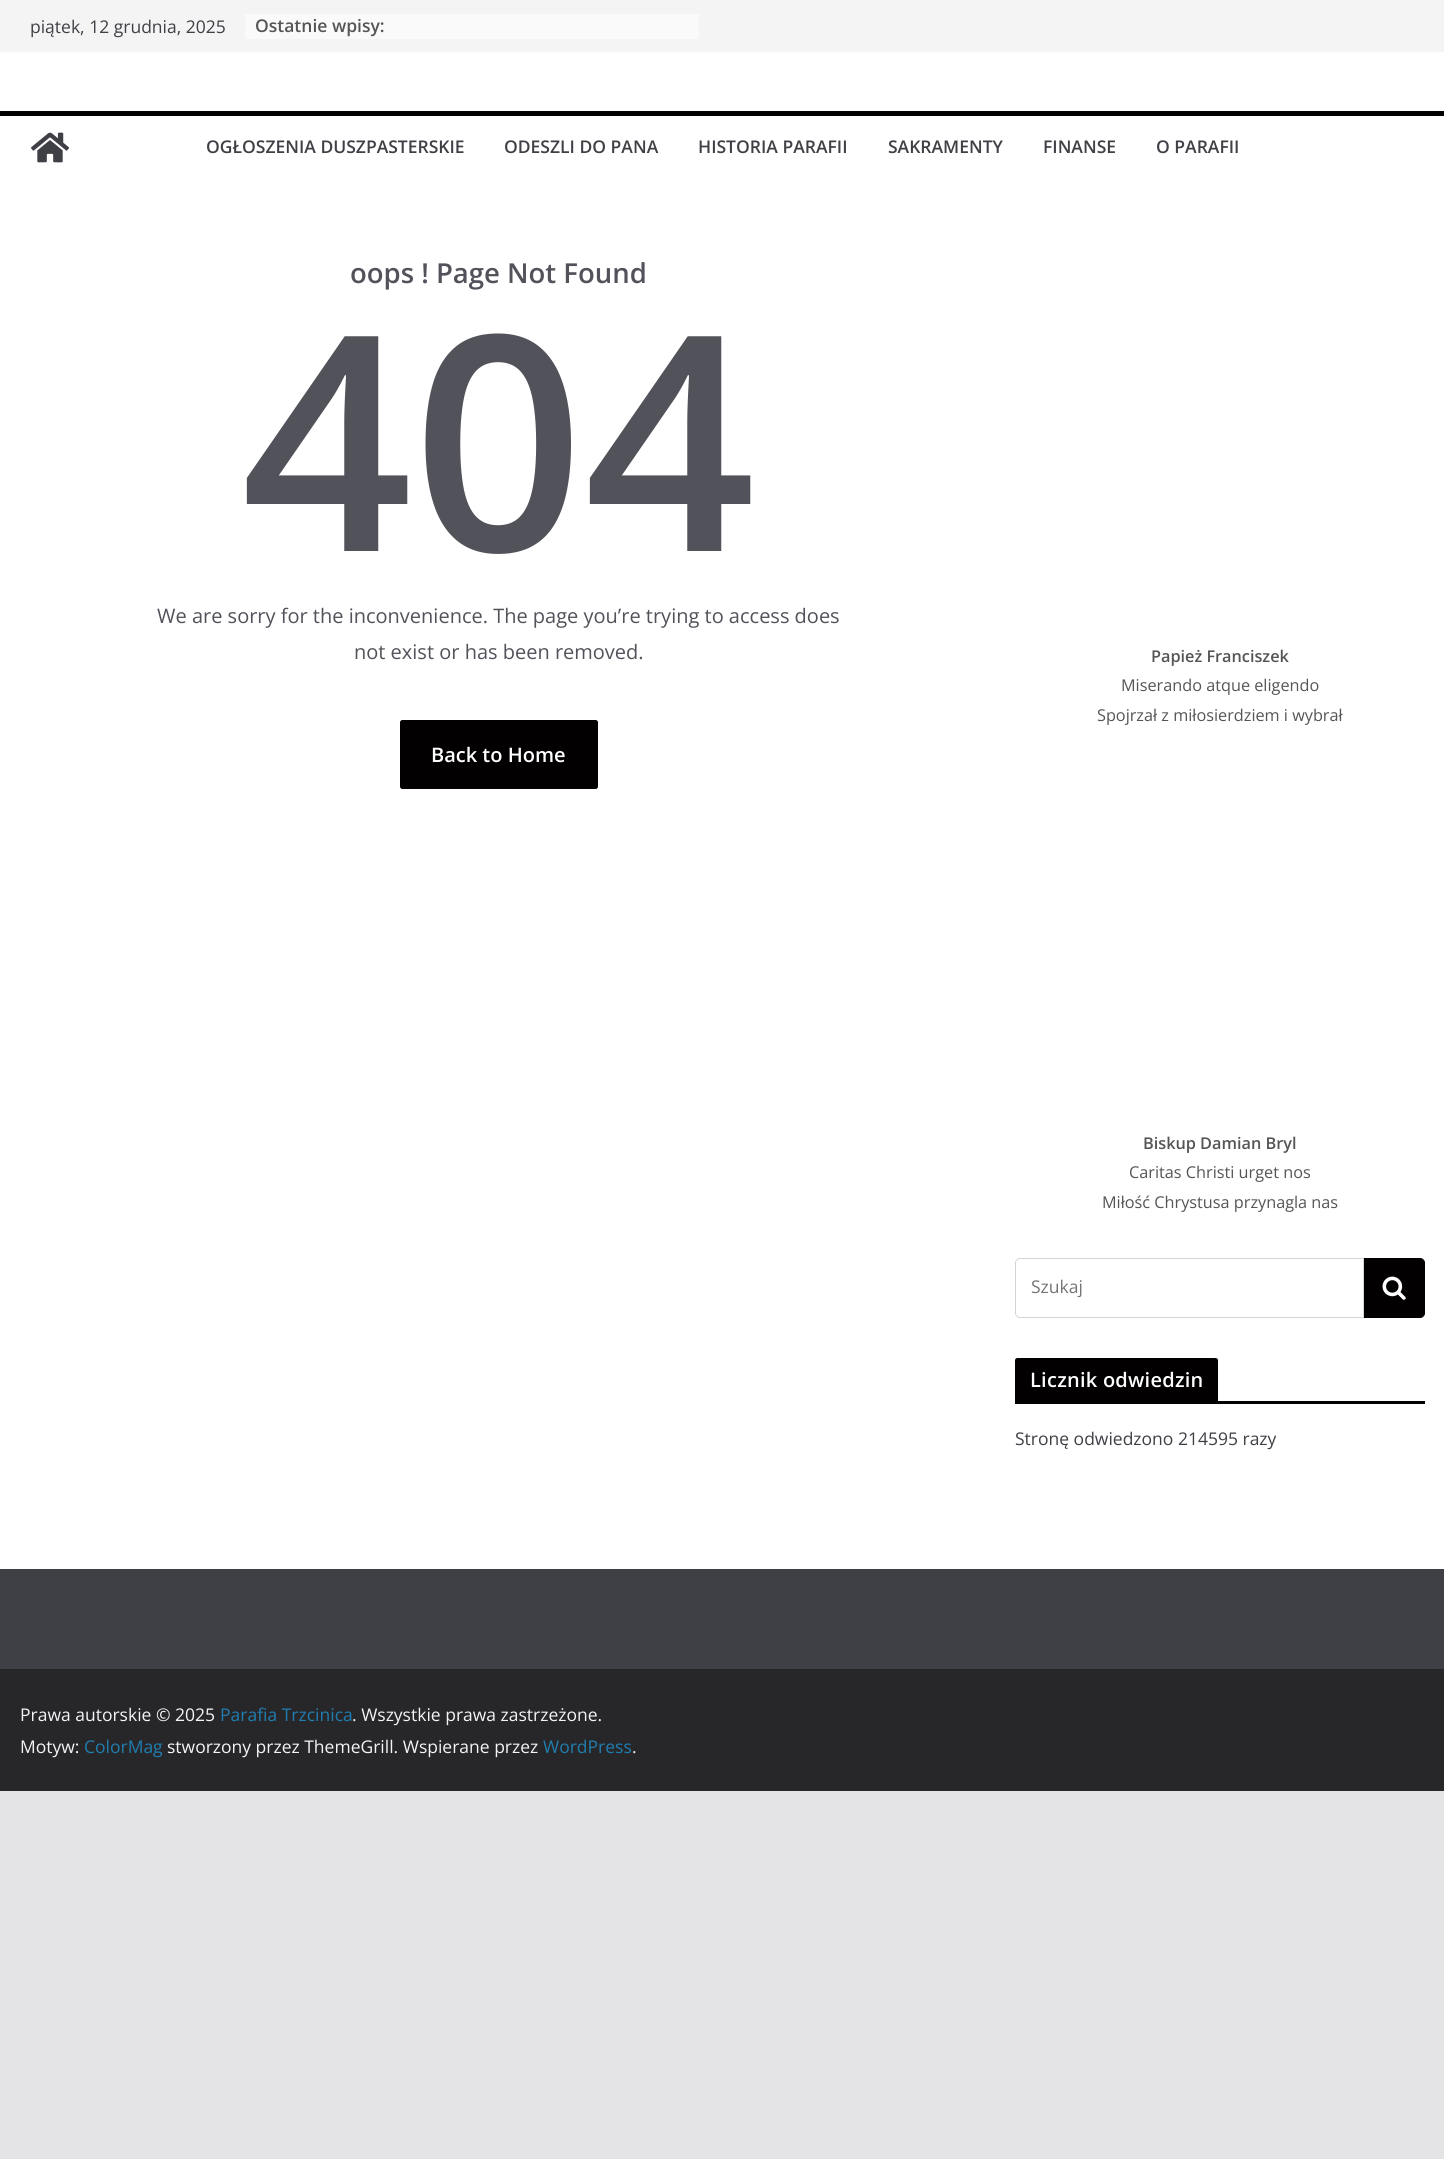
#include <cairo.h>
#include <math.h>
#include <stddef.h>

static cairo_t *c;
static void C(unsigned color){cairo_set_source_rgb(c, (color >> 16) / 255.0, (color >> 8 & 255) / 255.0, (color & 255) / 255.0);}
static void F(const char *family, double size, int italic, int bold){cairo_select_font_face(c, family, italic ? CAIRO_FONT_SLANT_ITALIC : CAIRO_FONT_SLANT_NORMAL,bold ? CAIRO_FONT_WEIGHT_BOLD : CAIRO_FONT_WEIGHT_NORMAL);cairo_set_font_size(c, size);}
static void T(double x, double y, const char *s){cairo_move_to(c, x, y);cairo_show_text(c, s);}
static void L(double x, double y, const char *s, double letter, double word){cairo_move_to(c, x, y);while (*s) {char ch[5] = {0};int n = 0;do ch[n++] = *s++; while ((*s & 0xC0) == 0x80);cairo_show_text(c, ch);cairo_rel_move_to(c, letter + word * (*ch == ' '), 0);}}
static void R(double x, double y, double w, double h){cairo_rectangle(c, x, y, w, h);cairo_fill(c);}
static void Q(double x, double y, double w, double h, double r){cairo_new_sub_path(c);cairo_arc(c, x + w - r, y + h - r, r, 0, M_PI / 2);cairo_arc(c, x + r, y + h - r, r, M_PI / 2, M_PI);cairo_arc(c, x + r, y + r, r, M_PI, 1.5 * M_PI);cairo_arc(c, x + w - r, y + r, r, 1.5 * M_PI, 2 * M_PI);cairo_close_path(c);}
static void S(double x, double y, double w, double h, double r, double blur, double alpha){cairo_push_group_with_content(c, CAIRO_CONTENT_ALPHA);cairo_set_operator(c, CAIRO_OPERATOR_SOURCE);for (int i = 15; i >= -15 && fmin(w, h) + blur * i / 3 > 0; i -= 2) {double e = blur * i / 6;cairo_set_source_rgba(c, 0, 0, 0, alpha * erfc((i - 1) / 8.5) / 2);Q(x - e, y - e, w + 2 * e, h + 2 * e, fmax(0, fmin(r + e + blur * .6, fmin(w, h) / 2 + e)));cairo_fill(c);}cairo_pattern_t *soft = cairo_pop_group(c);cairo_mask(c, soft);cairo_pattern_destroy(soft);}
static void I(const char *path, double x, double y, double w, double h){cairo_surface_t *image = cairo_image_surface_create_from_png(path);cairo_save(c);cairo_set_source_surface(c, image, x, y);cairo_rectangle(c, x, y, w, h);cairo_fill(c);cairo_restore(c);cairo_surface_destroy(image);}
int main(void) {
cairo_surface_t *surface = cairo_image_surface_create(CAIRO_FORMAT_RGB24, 1444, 2159);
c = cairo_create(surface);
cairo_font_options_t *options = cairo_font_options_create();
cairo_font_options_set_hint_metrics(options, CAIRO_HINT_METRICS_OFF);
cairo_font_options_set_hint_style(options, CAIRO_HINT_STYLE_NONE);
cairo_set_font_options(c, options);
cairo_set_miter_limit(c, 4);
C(0xe4e4e7);
cairo_paint(c);
C(0xffffff);
R(0,51,1444,1518);
C(0x000000);
S(0,0,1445,51,0,1,.1);
C(0xf4f4f5);
R(0,0,1444,51);
F("Open Sans",17.5,0,0);
C(0x3f3f46);
T(30,33,"piątek, 12 grudnia, 2025");
C(0xfafafa);
R(245,14,454,25);
F("Open Sans SemiBold",17.5,0,0);
C(0x555555);
T(255,32,"Ostatnie wpisy:");
C(0x020000);
R(0,111,1444,5);
I("1.png",31,132,38,31);
C(0x3f3f46);
T(206,153,"OGŁOSZENIA DUSZPASTERSKIE");
T(504,153,"ODESZLI DO PANA");
T(698,153,"HISTORIA PARAFII");
T(888,153,"SAKRAMENTY");
T(1043,153,"FINANSE");
T(1156,153,"O PARAFII");
F("Open Sans SemiBold",27.5,0,0);
C(0x52525b);
T(350,283,"oops ! Page Not Found");
F("Open Sans SemiBold",300,0,0);
T(241,551,"404");
F("Open Sans",20,0,0);
T(157,623,"We are sorry for the inconvenience. The page you’re trying to access does");
T(354,659,"not exist or has been removed.");
C(0x020000);
Q(400.5,720.5,197,68,2);
cairo_fill_preserve(c);
cairo_set_line_width(c,1);
cairo_stroke(c);
F("Open Sans SemiBold",20,0,0);
C(0xffffff);
T(431,762,"Back to Home");
F("Open Sans SemiBold",16.25,0,0);
C(0x555555);
T(1151,662,"Papież Franciszek");
F("Open Sans",16.25,0,0);
T(1121,691,"Miserando atque eligendo");
T(1097,721,"Spojrzał z miłosierdziem i wybrał");
F("Open Sans SemiBold",16.25,0,0);
T(1143,1149,"Biskup Damian Bryl");
F("Open Sans",16.25,0,0);
T(1129,1178,"Caritas Christi urget nos");
T(1102,1208,"Miłość Chrystusa przynagla nas");
cairo_new_path(c);
cairo_move_to(c,1020,1258.5);
cairo_line_to(c,1363.5,1258.5);
cairo_line_to(c,1363.5,1317.5);
cairo_line_to(c,1020,1317.5);
cairo_curve_to(c,1017.5,1317.5,1015.5,1315.5,1015.5,1313);
cairo_line_to(c,1015.5,1263);
cairo_curve_to(c,1015.5,1260.5,1017.5,1258.5,1020,1258.5);
cairo_close_path(c);
C(0xd4d4d8);
cairo_stroke(c);
F("Open Sans",17.5,0,0);
C(0x757575);
T(1031,1293,"Szukaj");
C(0x020000);
cairo_new_path(c);
cairo_move_to(c,1364.5,1258.5);
cairo_line_to(c,1420,1258.5);
cairo_curve_to(c,1422.5,1258.5,1424.5,1260.5,1424.5,1263);
cairo_line_to(c,1424.5,1313);
cairo_curve_to(c,1424.5,1315.5,1422.5,1317.5,1420,1317.5);
cairo_line_to(c,1364.5,1317.5);
cairo_close_path(c);
cairo_fill_preserve(c);
cairo_stroke(c);
I("2.png",1382,1276,24,24);
R(1015,1401,410,3);
cairo_new_path(c);
cairo_move_to(c,1017.5,1358);
cairo_line_to(c,1215.5,1358);
cairo_curve_to(c,1217,1358,1218,1359,1218,1360.5);
cairo_line_to(c,1218,1401);
cairo_line_to(c,1015,1401);
cairo_line_to(c,1015,1360.5);
cairo_curve_to(c,1015,1359,1016,1358,1017.5,1358);
cairo_close_path(c);
cairo_fill(c);
F("Open Sans SemiBold",20,0,0);
C(0xffffff);
L(1030,1387,"Licznik odwiedzin",.25,0);
F("Open Sans",17.5,0,0);
C(0x3f3f46);
T(1015,1445,"Stronę odwiedzono 214595 razy");
R(0,1569,1444,100);
C(0x27272a);
R(0,1669,1444,122);
C(0xf4f4f5);
T(20,1721,"Prawa autorskie © 2025");
C(0x207daf);
T(220,1721,"Parafia Trzcinica");
C(0xf4f4f5);
T(352,1721,". Wszystkie prawa zastrzeżone.");
T(20,1753,"Motyw:");
C(0x207daf);
T(84,1753,"ColorMag");
C(0xf4f4f5);
T(167,1753,"stworzony przez ThemeGrill. Wspierane przez");
C(0x207daf);
T(543,1753,"WordPress");
C(0xf4f4f5);
T(632,1753,".");
cairo_surface_write_to_png(surface, "o.png");
cairo_font_options_destroy(options);
cairo_destroy(c);
cairo_surface_destroy(surface);
return 0;
}
